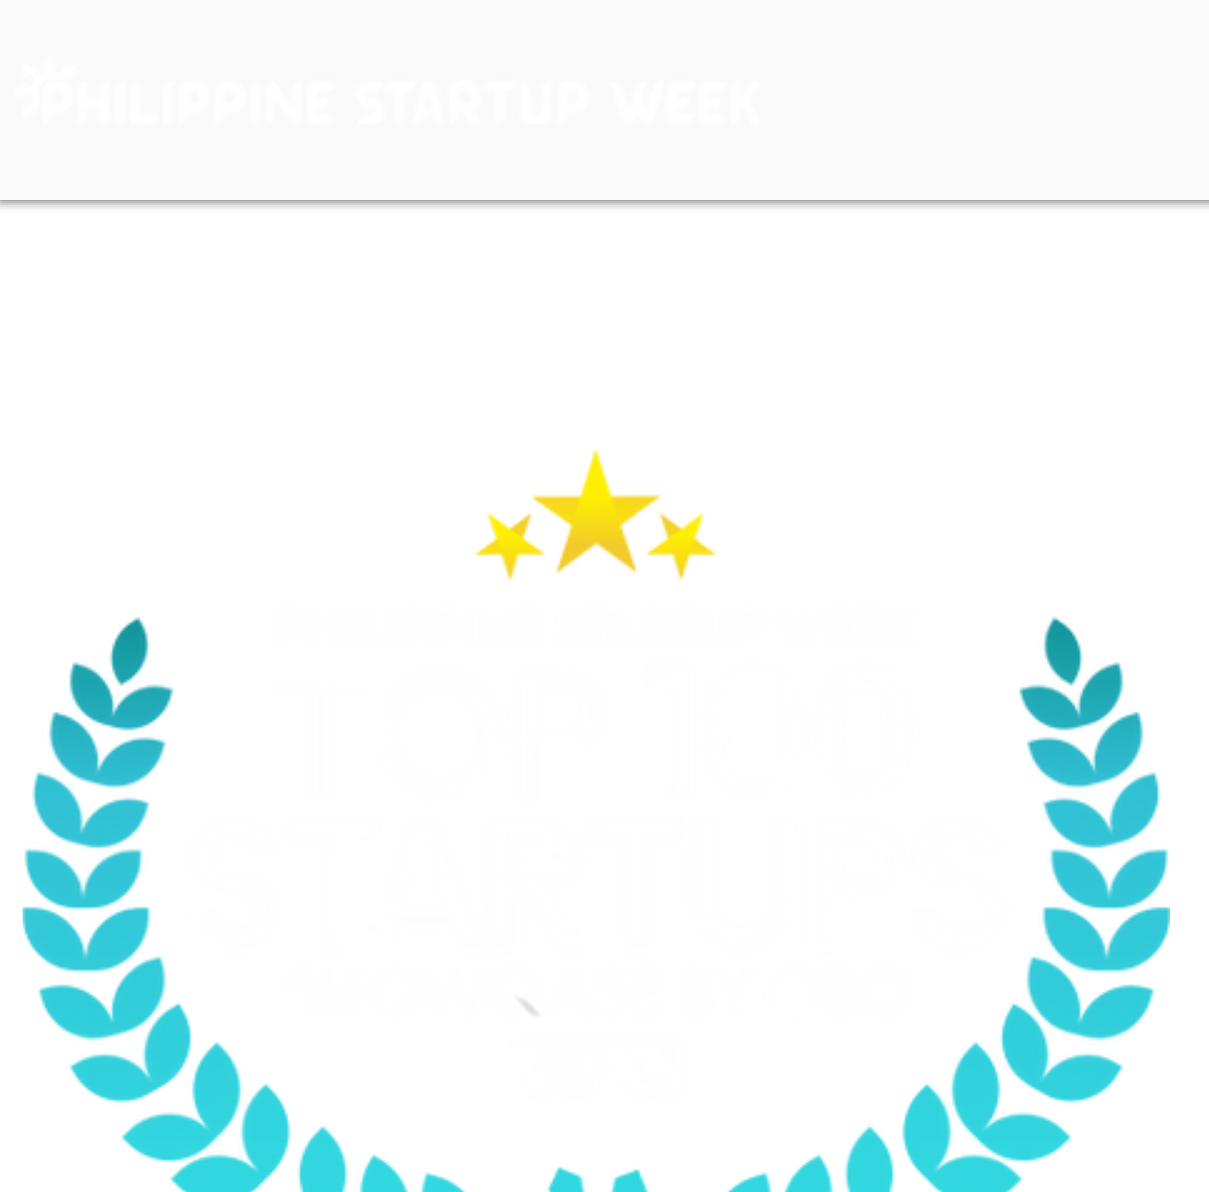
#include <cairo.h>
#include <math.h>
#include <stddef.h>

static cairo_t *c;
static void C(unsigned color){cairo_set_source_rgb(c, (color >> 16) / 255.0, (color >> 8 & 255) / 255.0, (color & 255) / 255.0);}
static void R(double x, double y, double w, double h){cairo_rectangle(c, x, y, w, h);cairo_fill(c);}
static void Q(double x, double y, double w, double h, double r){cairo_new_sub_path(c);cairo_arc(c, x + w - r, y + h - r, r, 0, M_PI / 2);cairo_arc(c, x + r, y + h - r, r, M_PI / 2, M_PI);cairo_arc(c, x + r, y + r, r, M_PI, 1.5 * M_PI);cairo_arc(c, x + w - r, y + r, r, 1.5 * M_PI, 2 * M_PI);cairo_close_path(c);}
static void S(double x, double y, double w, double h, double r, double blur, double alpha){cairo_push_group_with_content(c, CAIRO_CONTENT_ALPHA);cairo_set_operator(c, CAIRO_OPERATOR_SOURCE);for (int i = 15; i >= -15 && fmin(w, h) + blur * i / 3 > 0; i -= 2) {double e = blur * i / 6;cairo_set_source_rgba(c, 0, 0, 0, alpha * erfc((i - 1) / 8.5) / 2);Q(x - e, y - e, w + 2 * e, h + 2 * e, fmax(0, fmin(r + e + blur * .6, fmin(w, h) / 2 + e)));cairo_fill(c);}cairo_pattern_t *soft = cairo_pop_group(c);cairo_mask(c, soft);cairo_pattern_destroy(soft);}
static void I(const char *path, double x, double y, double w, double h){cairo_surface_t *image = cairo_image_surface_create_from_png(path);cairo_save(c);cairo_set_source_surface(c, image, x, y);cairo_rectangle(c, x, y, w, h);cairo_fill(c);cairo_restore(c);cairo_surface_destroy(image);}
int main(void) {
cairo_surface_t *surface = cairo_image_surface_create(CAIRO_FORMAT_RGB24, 1209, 1192);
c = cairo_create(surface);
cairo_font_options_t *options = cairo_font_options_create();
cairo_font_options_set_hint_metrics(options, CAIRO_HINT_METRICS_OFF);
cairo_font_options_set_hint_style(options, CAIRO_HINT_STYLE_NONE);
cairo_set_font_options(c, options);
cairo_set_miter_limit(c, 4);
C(0xffffff);
cairo_paint(c);
C(0x000000);
S(0,0,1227,200,0,6,.7);
C(0xfafafa);
R(0,0,1209,200);
I("1.png",15,55,744,69);
I("2.png",22,450,1148,742);
cairo_surface_write_to_png(surface, "o.png");
cairo_font_options_destroy(options);
cairo_destroy(c);
cairo_surface_destroy(surface);
return 0;
}
